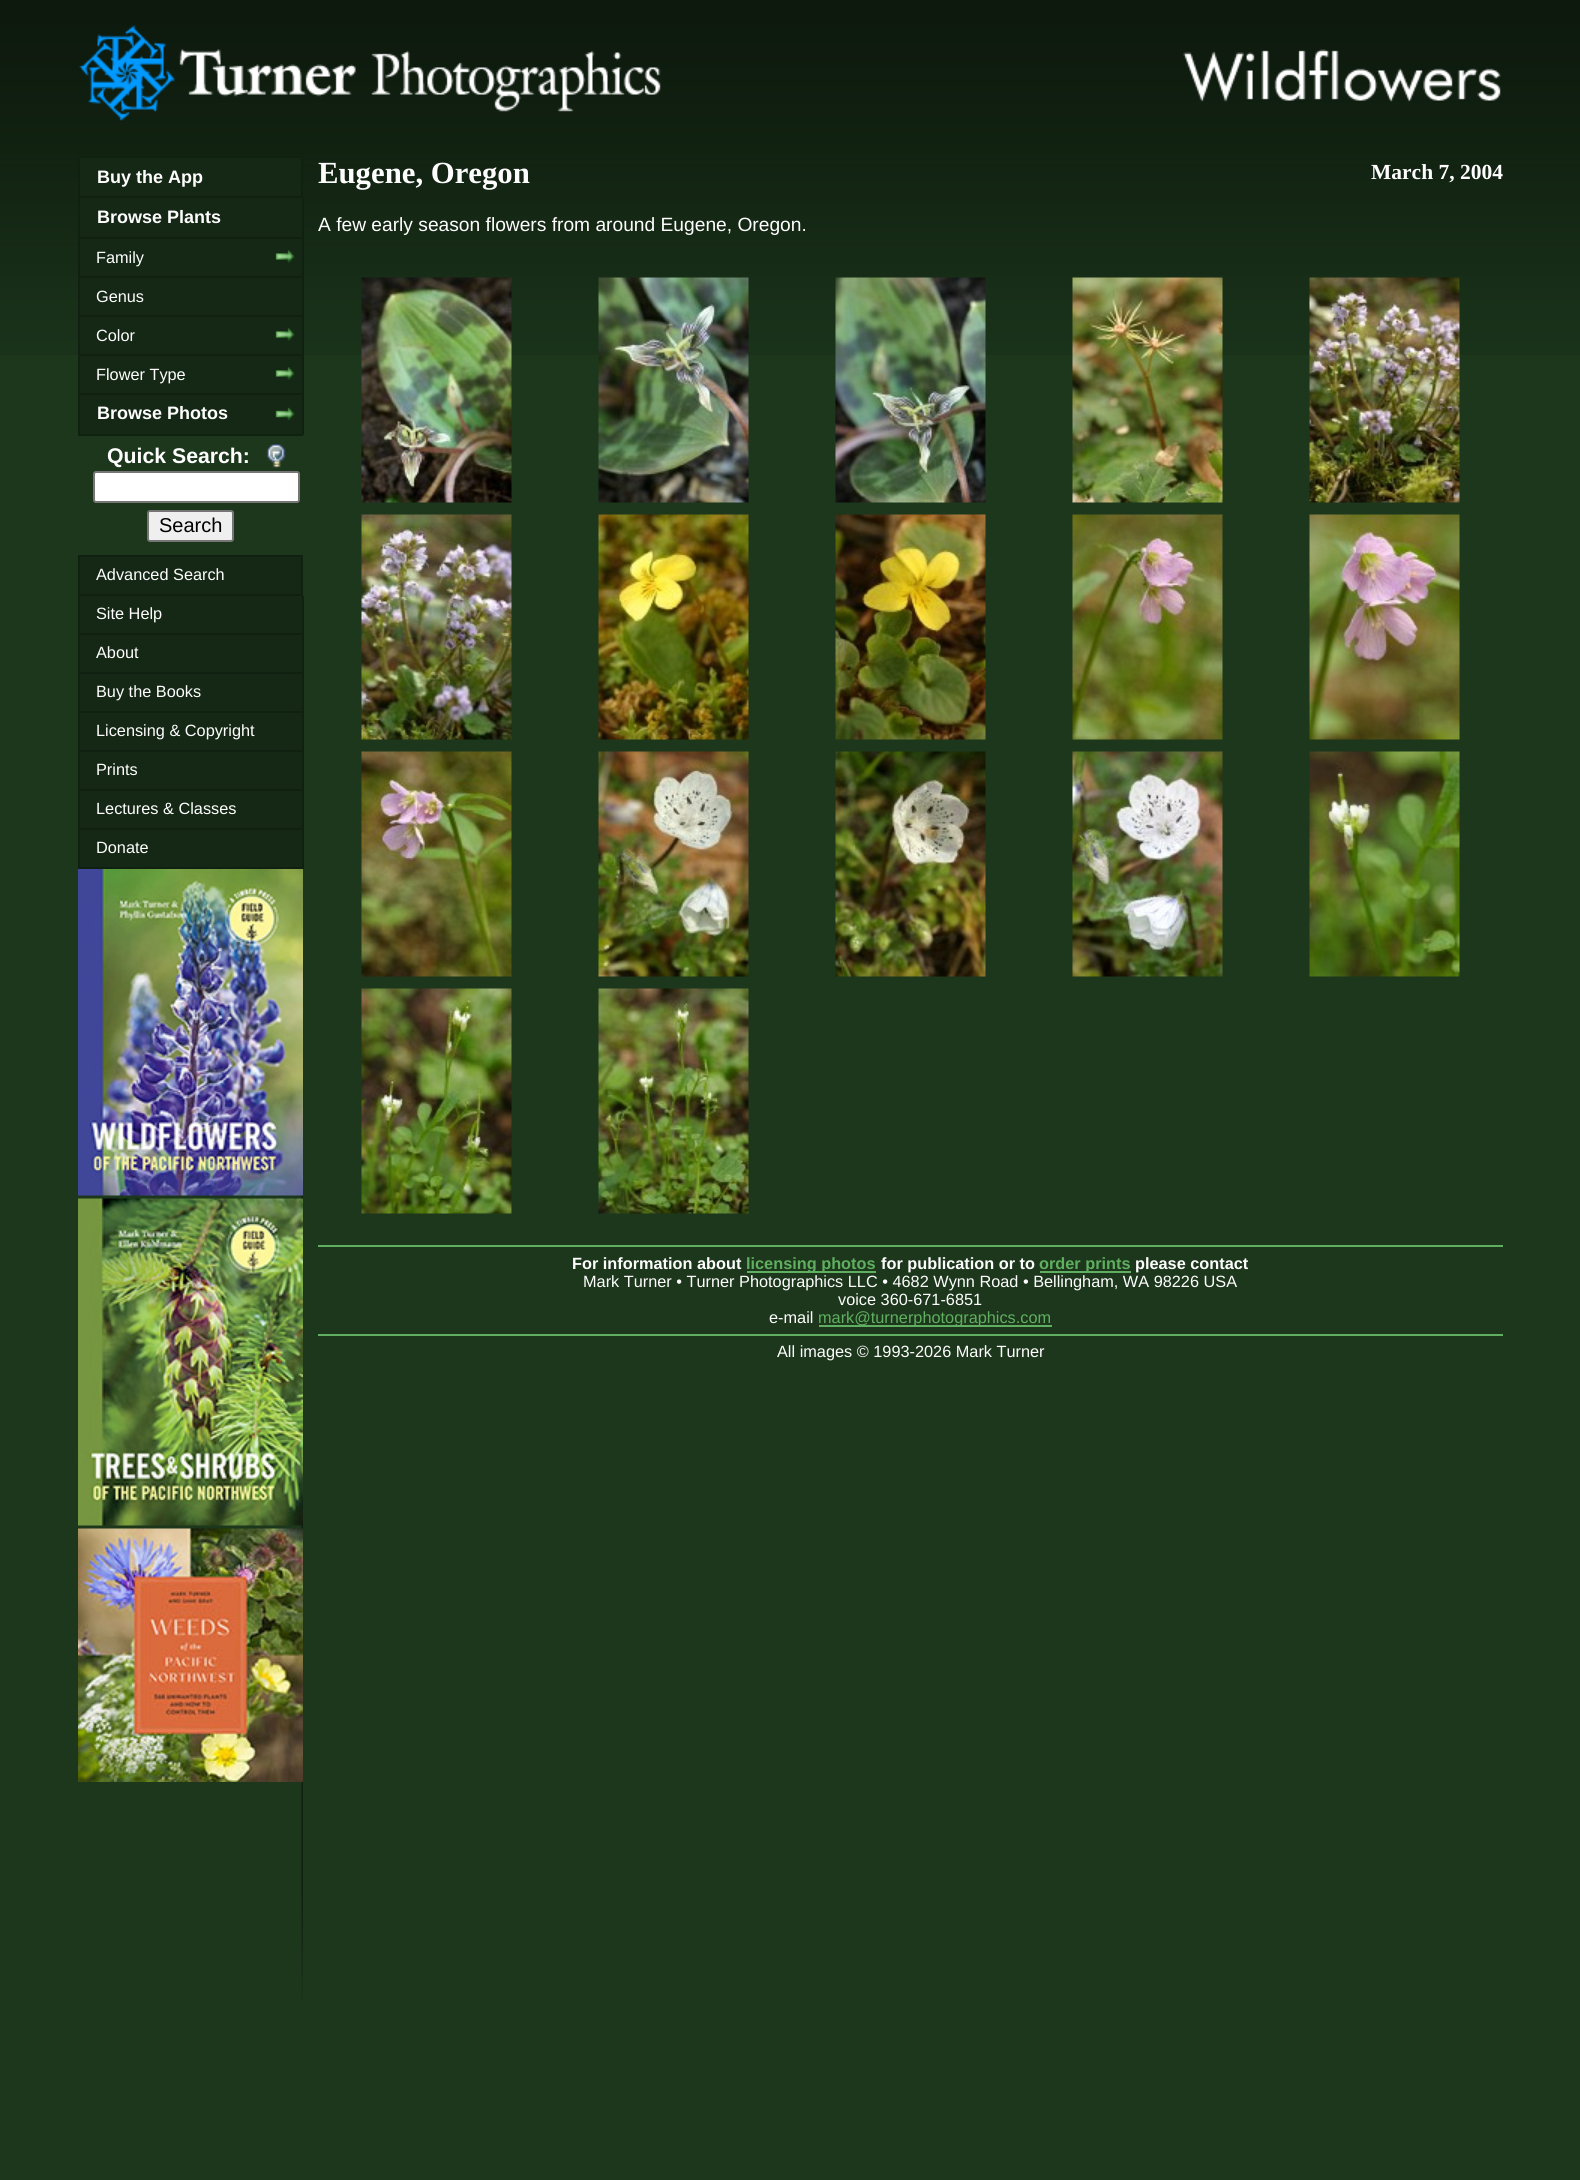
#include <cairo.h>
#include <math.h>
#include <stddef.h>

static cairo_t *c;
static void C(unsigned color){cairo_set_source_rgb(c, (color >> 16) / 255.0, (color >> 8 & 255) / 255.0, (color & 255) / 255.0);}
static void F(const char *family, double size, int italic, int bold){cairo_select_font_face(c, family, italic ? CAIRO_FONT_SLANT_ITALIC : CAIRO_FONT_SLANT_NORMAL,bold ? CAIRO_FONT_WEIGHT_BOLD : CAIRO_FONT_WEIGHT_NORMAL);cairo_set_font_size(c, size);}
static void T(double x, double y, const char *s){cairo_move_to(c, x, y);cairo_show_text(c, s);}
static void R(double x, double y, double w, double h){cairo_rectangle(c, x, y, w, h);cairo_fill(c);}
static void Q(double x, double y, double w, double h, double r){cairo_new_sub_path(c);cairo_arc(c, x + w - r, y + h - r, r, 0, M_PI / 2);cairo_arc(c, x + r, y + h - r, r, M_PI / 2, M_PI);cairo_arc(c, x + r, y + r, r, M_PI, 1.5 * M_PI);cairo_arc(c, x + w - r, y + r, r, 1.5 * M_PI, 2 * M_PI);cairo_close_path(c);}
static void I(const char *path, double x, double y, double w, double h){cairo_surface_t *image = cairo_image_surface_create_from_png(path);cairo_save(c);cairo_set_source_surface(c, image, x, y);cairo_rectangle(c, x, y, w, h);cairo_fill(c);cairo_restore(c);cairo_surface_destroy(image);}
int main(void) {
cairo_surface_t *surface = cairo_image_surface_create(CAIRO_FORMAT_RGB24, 1580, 2180);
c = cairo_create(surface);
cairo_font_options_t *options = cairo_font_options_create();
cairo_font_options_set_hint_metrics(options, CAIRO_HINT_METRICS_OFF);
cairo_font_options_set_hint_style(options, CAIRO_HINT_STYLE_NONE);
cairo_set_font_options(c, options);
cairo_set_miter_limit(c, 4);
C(0x1c371c);
cairo_paint(c);
I("1.png",0,0,1580,355);
I("2.png",79,25,582,96);
I("3.png",1183,49,318,53);
I("4.png",301,1195,2,804);
C(0x152815);
R(80,158,222,276);
cairo_rectangle(c,79,157,223,40);
C(0x112111);
cairo_stroke(c);
F("Liberation Sans",18,0,1);
C(0xffffff);
T(97,183,"Buy the App");
C(0x112111);
R(302,198,2,237);
R(78,237,225,2);
R(78,198,2,41);
C(0xffffff);
T(97,223,"Browse Plants");
C(0x112111);
R(78,276,225,2);
R(78,239,2,39);
I("5.png",275,250,20,13);
F("Liberation Sans",16.3,0,0);
C(0xffffff);
T(96,263,"Family");
C(0x112111);
R(78,315,225,2);
R(78,278,2,39);
C(0xffffff);
T(96,302,"Genus");
C(0x112111);
R(78,354,225,2);
R(78,317,2,39);
I("5.png",275,328,20,13);
C(0xffffff);
T(96,341,"Color");
C(0x112111);
R(78,393,225,2);
R(78,356,2,39);
I("5.png",275,367,20,13);
C(0xffffff);
T(96,380,"Flower Type");
C(0x112111);
R(78,434,225,2);
R(78,395,2,40);
I("6.png",275,407,20,14);
F("Liberation Sans",18,0,1);
C(0xffffff);
T(97,419,"Browse Photos");
I("7.png",266,444,20,24);
F("Liberation Sans",21.25,0,1);
T(107,463,"Quick Search:");
Q(94,472,205,30,2);
cairo_fill_preserve(c);
C(0x767676);
cairo_stroke(c);
C(0xefefef);
Q(148,511,85,30,2);
cairo_fill_preserve(c);
C(0x767676);
cairo_stroke(c);
F("Liberation Sans",20,0,0);
C(0x000000);
T(159,532,"Search");
C(0x152815);
R(80,557,222,310);
cairo_rectangle(c,79,556,223,39);
C(0x112111);
cairo_stroke(c);
F("Liberation Sans",16.3,0,0);
C(0xffffff);
T(96,580,"Advanced Search");
C(0x112111);
R(302,596,2,273);
R(78,633,225,2);
R(78,596,2,39);
C(0xffffff);
T(96,619,"Site Help");
C(0x112111);
R(78,672,225,2);
R(78,635,2,39);
C(0xffffff);
T(96,658,"About");
C(0x112111);
R(78,711,225,2);
R(78,674,2,39);
C(0xffffff);
T(96,697,"Buy the Books");
C(0x112111);
R(78,750,225,2);
R(78,713,2,39);
C(0xffffff);
T(96,736,"Licensing & Copyright");
C(0x112111);
R(78,789,225,2);
R(78,752,2,39);
C(0xffffff);
T(96,775,"Prints");
C(0x112111);
R(78,828,225,2);
R(78,791,2,39);
C(0xffffff);
T(96,814,"Lectures & Classes");
C(0x112111);
R(78,867,225,2);
R(78,830,2,39);
C(0xffffff);
T(96,853,"Donate");
I("8.png",78,869,225,327);
I("9.png",78,1198,225,328);
I("10.png",78,1528,225,254);
F("Liberation Serif",30.75,0,1);
T(318,183,"Eugene, Oregon");
F("Liberation Serif",21.5,0,1);
T(1371,179,"March 7, 2004");
F("Liberation Sans",19.2,0,0);
T(318,231,"A few early season flowers from around Eugene, Oregon.");
I("11.png",361,277,151,226);
I("12.png",598,277,151,226);
I("13.png",835,277,151,226);
I("14.png",1072,277,151,226);
I("15.png",1309,277,151,226);
I("16.png",361,514,151,226);
I("17.png",598,514,151,226);
I("18.png",835,514,151,226);
I("19.png",1072,514,151,226);
I("20.png",1309,514,151,226);
I("21.png",361,751,151,226);
I("22.png",598,751,151,226);
I("23.png",835,751,151,226);
I("24.png",1072,751,151,226);
I("25.png",1309,751,151,226);
I("26.png",361,988,151,226);
I("27.png",598,988,151,226);
C(0x60af60);
R(318,1245,1185,2);
F("Liberation Sans",16.3,0,1);
C(0xffffff);
T(572,1269,"For information about");
C(0x60af60);
R(747,1271,129,2);
T(746,1269,"licensing photos");
C(0xffffff);
T(881,1269,"for publication or to");
C(0x60af60);
R(1040,1271,91,2);
T(1039,1269,"order prints");
C(0xffffff);
T(1135,1269,"please contact");
F("Liberation Sans",16.3,0,0);
T(583,1287,"Mark Turner • Turner Photographics LLC • 4682 Wynn Road • Bellingham, WA 98226 USA");
T(838,1305,"voice 360-671-6851");
T(769,1323,"e-mail");
C(0x60af60);
R(819,1325,233,2);
T(818,1323,"mark@turnerphotographics.com");
R(318,1334,1185,2);
C(0xffffff);
T(777,1357,"All images © 1993-2026 Mark Turner");
cairo_surface_write_to_png(surface, "o.png");
cairo_font_options_destroy(options);
cairo_destroy(c);
cairo_surface_destroy(surface);
return 0;
}
